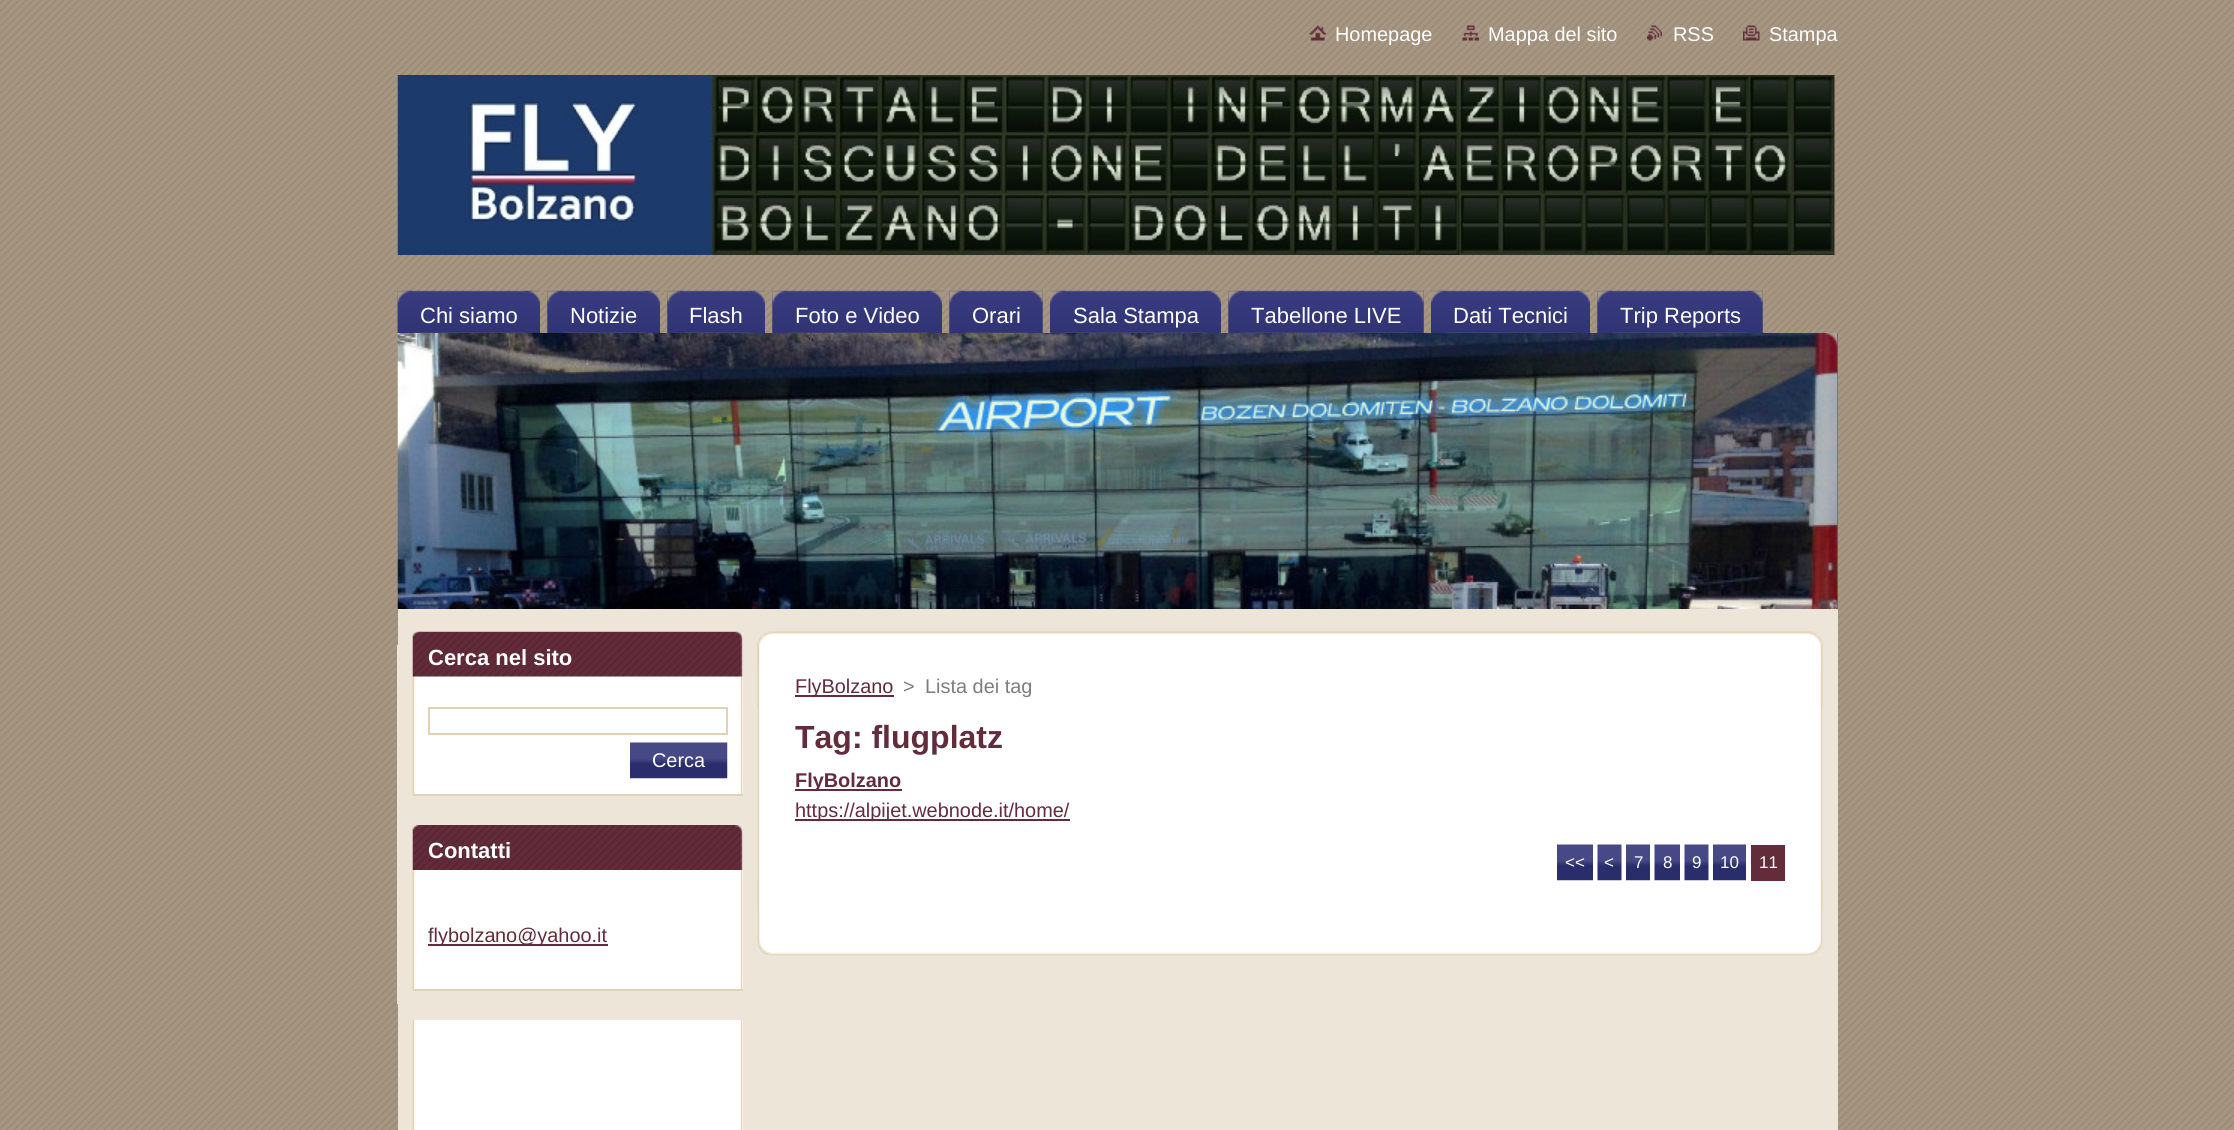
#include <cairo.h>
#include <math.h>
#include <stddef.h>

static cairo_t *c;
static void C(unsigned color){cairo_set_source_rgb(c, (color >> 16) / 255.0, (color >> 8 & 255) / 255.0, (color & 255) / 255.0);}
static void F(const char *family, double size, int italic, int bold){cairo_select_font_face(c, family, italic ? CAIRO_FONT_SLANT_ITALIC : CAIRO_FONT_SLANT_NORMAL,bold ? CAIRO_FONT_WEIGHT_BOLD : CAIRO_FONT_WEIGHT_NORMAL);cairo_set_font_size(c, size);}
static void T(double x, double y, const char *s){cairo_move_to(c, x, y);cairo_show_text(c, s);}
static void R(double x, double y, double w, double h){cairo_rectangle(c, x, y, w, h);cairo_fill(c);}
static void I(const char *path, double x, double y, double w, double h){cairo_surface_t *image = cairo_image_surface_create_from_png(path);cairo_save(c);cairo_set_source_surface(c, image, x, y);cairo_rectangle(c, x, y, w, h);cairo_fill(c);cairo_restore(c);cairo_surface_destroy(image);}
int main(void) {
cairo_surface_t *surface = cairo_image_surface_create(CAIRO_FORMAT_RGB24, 2234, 1130);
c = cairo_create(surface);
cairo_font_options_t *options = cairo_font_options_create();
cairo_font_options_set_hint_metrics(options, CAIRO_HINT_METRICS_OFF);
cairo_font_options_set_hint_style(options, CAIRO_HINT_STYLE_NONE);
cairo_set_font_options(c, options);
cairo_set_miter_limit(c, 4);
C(0xffffff);
cairo_paint(c);
I("1.png",0,0,2234,1130);
C(0xede5d7);
R(397,645,1,359);
I("2.png",1309,25,17,16);
F("Liberation Sans",19.9,0,0);
C(0xffffff);
T(1335,41,"Homepage");
I("3.png",1462,25,17,16);
T(1488,41,"Mappa del sito");
I("4.png",1647,25,15,16);
T(1673,41,"RSS");
I("5.png",1743,25,17,16);
T(1769,41,"Stampa");
I("6.png",397,75,1438,180);
I("7.png",397,290,143,43);
I("8.png",397,290,16,43);
I("9.png",525,290,15,43);
F("Liberation Sans",22,0,0);
T(420,323,"Chi siamo");
I("10.png",547,290,113,43);
I("11.png",547,290,16,43);
I("12.png",645,290,15,43);
T(570,323,"Notizie");
I("13.png",667,290,98,43);
I("14.png",667,290,17,43);
I("15.png",750,290,15,43);
T(689,323,"Flash");
I("16.png",772,290,170,43);
I("17.png",772,290,16,43);
I("18.png",927,290,15,43);
T(795,323,"Foto e Video");
I("19.png",949,290,94,43);
I("20.png",949,290,16,43);
I("21.png",1027,290,16,43);
T(972,323,"Orari");
I("22.png",1050,290,171,43);
I("23.png",1050,290,15,43);
I("24.png",1206,290,15,43);
T(1073,323,"Sala Stampa");
I("25.png",1228,290,196,43);
I("26.png",1228,290,16,43);
I("27.png",1408,290,16,43);
T(1251,323,"Tabellone LIVE");
I("28.png",1431,290,159,43);
I("29.png",1431,290,15,43);
I("30.png",1575,290,15,43);
T(1453,323,"Dati Tecnici");
I("31.png",1597,290,166,43);
I("17.png",1597,290,16,43);
I("32.png",1747,290,16,43);
T(1620,323,"Trip Reports");
C(0x636479);
R(1837,333,1,276);
I("33.png",397,333,1441,276);
I("34.png",1825,333,13,13);
C(0xede5d8);
R(398,609,1440,521);
C(0xffffff);
R(742,632,1,162);
I("35.png",412,631,331,164);
C(0xe1d1b5);
R(413,794,330,2);
I("36.png",412,631,331,46);
F("Liberation Sans",22,0,1);
C(0xffffff);
T(428,665,"Cerca nel sito");
cairo_rectangle(c,429,708,298,26);
C(0xe1d1b5);
cairo_stroke(c);
I("37.png",630,742,98,37);
F("Liberation Sans",19.9,0,0);
C(0xffffff);
T(652,767,"Cerca");
R(742,825,1,164);
I("38.png",412,825,331,165);
C(0xe1d1b5);
R(413,989,330,2);
I("39.png",412,825,331,45);
F("Liberation Sans",22,0,1);
C(0xffffff);
T(428,858,"Contatti");
C(0x632c3b);
R(428,944,67,2);
F("Liberation Sans",19.9,0,0);
T(428,942,"flybolza");
R(495,944,113,2);
T(495,942,"no@yahoo.it");
C(0xffffff);
R(742,1020,1,110);
I("40.png",412,1020,331,110);
I("41.png",757,631,1066,76);
I("42.png",757,880,1066,76);
I("43.png",757,669,1066,241);
C(0x632c3b);
R(795,695,99,2);
T(795,693,"FlyBolzano");
C(0x7d7d7d);
T(903,693,">");
T(925,693,"Lista dei tag");
F("Liberation Sans",32,0,1);
C(0x632c3b);
T(795,748,"Tag: flugplatz");
R(795,789,107,2);
F("Liberation Sans",19.9,0,1);
T(795,787,"FlyBolzano");
R(795,819,275,2);
F("Liberation Sans",19.9,0,0);
T(795,817,"https://alpijet.webnode.it/home/");
I("44.png",1557,844,36,37);
F("Liberation Sans",17,0,0);
C(0xffffff);
T(1565,868,"<<");
I("45.png",1597,844,25,37);
T(1604,868,"<");
I("46.png",1626,844,24,37);
T(1634,868,"7");
I("47.png",1654,844,26,37);
T(1663,868,"8");
I("45.png",1684,844,25,37);
T(1692,868,"9");
I("48.png",1713,844,33,37);
T(1720,868,"10");
C(0x632c3b);
R(1751,845,34,36);
C(0xffffff);
T(1759,868,"11");
cairo_surface_write_to_png(surface, "o.png");
cairo_font_options_destroy(options);
cairo_destroy(c);
cairo_surface_destroy(surface);
return 0;
}
